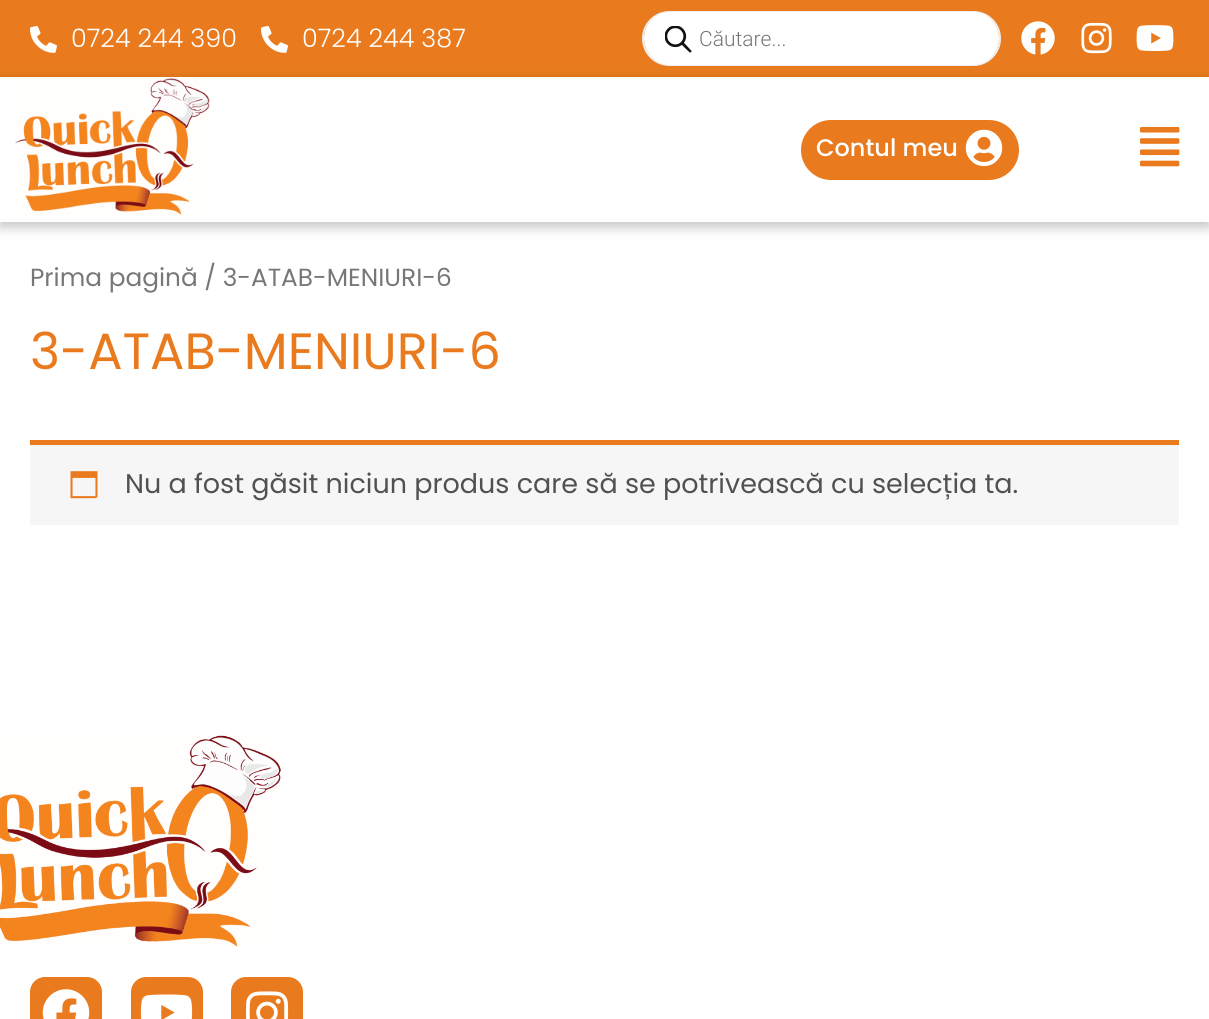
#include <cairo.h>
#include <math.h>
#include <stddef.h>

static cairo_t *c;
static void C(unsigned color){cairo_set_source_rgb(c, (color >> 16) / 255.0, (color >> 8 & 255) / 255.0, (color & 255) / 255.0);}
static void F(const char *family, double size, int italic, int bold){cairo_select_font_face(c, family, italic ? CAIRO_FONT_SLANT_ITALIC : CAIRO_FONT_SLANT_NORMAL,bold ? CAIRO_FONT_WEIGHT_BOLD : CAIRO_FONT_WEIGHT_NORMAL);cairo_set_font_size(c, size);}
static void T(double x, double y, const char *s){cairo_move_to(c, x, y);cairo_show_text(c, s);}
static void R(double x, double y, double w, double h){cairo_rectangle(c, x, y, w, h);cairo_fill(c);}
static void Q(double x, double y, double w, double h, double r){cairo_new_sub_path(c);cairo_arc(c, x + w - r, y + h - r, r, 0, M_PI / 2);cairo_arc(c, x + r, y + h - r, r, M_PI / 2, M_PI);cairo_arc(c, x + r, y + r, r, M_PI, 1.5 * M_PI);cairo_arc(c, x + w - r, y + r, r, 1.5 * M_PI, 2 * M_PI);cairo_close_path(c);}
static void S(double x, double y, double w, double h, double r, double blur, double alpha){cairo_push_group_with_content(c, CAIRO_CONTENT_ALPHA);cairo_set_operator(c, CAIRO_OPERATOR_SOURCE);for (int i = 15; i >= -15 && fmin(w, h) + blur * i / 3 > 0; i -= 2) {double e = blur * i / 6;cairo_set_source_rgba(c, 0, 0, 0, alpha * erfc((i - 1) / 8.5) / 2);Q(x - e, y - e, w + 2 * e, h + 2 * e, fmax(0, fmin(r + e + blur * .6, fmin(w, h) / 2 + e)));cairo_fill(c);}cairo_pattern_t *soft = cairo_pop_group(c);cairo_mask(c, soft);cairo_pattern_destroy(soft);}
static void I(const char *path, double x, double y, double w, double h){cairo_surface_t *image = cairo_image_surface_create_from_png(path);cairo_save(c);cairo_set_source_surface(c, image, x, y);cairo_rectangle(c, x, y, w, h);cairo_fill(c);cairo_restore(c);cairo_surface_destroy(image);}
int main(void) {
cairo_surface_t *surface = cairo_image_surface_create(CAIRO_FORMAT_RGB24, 1209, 1019);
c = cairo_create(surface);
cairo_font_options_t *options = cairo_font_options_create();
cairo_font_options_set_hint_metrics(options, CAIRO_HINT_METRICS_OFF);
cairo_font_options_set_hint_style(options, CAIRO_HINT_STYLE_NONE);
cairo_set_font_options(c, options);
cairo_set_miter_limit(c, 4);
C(0xffffff);
cairo_paint(c);
C(0xe97b1e);
R(0,0,1209,77);
I("1.png",30,26,27,27);
F("Poppins Light",25.5,0,0);
C(0xffffff);
T(71,47,"0724 244 390");
I("1.png",261,26,27,27);
T(302,47,"0724 244 387");
Q(643,12,357,53,26.5);
C(0xeeeeee);
cairo_stroke(c);
C(0xffffff);
Q(644,12,355,53,26.5);
cairo_fill(c);
I("2.png",665,26,27,27);
F("Roboto Light",21,0,0);
C(0x777777);
T(699,46,"Căutare...");
I("3.png",1021,21,34,34);
I("4.png",1081,22,31,32);
I("5.png",1136,25,38,26);
cairo_save(c);
cairo_set_fill_rule(c,CAIRO_FILL_RULE_EVEN_ODD);
cairo_new_path(c);
cairo_move_to(c,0,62);
cairo_line_to(c,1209,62);
cairo_line_to(c,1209,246);
cairo_line_to(c,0,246);
cairo_close_path(c);
cairo_move_to(c,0,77);
cairo_line_to(c,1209,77);
cairo_line_to(c,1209,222);
cairo_line_to(c,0,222);
cairo_close_path(c);
cairo_clip(c);
C(0x000000);
S(0,81,1209,146,0,6,.24);
cairo_restore(c);
I("6.png",15,78,195,137);
C(0xe97b1e);
Q(801,120,218,60,30);
cairo_fill(c);
F("Poppins Medium",24,0,0);
C(0xffffff);
T(816,156,"Contul meu");
I("7.png",965,129,38,38);
I("8.png",1140,126,40,41);
F("Poppins",24.8,0,0);
C(0x777777);
T(30,286,"Prima pagină / 3-ATAB-MENIURI-6");
F("Poppins",51,0,0);
C(0xe97b1e);
T(30,369,"3-ATAB-MENIURI-6");
C(0xf7f6f7);
R(30,445,1149,80);
C(0xe97b1e);
R(30,440,1149,5);
I("9.png",70,471,28,28);
F("Poppins",27,0,0);
C(0x515151);
T(125,493,"Nu a fost găsit niciun produs care să se potrivească cu selecția ta.");
I("10.png",0,735,281,212);
C(0xe97b1e);
Q(30,977,72,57,15);
cairo_fill(c);
I("11.png",42,989,48,30);
Q(131,977,72,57,15);
cairo_fill(c);
I("12.png",140,994,53,25);
Q(231,977,72,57,15);
cairo_fill(c);
I("13.png",246,991,43,28);
cairo_surface_write_to_png(surface, "o.png");
cairo_font_options_destroy(options);
cairo_destroy(c);
cairo_surface_destroy(surface);
return 0;
}
